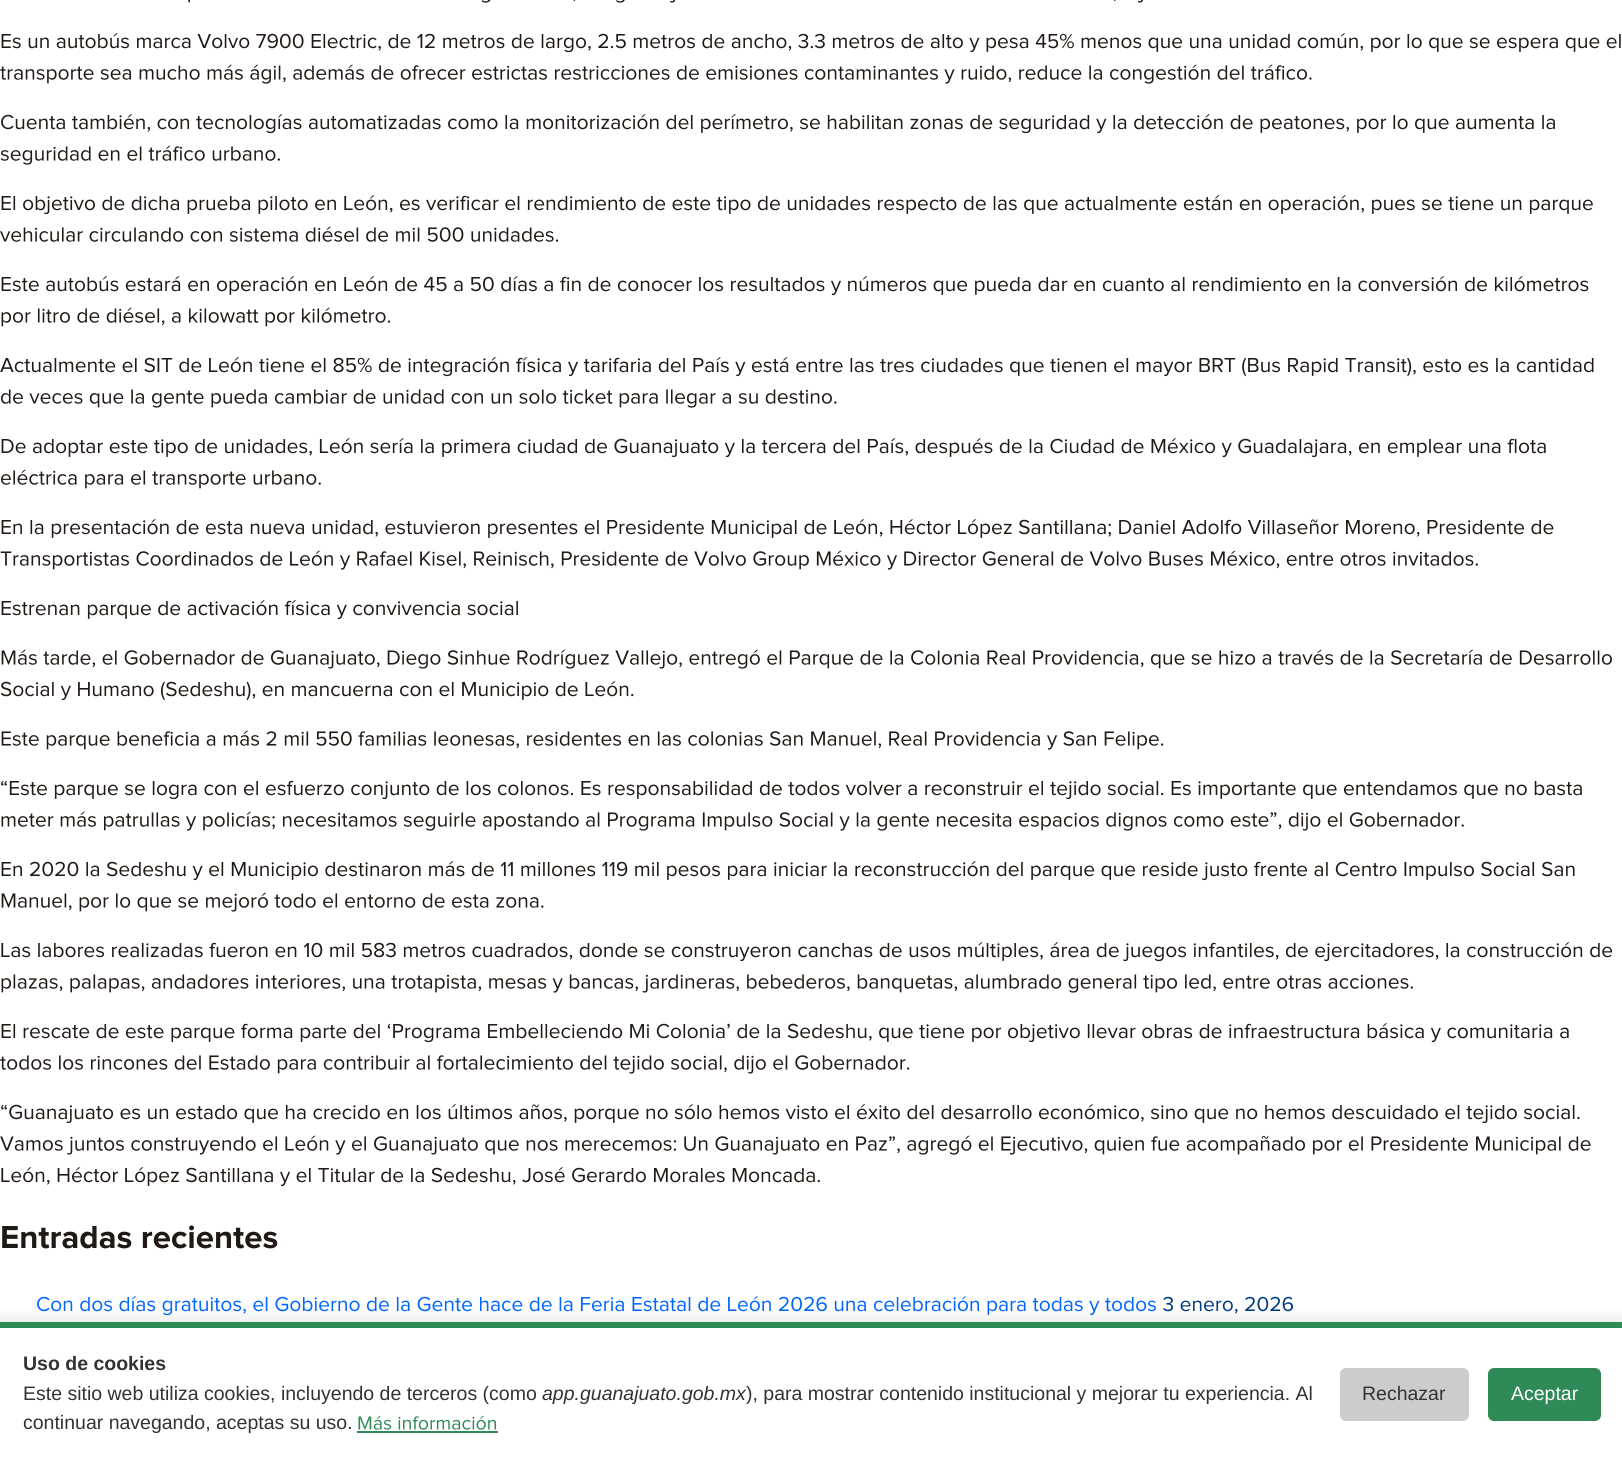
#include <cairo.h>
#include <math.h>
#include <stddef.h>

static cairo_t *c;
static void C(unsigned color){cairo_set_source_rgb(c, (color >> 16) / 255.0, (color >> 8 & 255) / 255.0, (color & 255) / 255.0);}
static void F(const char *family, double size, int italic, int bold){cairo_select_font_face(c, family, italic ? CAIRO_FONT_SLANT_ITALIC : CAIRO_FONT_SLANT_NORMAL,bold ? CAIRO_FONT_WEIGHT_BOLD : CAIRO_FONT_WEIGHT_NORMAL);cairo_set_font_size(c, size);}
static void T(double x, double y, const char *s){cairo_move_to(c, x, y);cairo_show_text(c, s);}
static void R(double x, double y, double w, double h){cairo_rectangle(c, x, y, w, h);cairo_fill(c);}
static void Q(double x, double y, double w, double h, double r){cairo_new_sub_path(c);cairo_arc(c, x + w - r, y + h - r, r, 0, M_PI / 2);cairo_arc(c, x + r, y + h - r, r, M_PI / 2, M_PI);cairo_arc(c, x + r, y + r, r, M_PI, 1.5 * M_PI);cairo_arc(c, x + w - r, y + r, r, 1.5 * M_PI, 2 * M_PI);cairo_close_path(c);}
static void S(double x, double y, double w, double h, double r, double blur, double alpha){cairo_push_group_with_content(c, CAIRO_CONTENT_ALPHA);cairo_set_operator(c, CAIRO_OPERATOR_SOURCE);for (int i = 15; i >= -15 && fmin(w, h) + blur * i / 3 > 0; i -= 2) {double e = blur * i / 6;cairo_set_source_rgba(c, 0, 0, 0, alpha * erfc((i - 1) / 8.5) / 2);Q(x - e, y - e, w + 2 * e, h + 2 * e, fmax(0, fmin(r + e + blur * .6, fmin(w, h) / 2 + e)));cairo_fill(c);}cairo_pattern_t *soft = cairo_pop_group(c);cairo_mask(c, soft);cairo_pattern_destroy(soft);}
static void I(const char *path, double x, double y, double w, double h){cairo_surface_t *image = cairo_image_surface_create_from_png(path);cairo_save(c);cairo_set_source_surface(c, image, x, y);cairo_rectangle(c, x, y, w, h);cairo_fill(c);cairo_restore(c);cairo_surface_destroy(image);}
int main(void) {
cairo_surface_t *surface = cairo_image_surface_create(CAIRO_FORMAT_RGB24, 1622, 1461);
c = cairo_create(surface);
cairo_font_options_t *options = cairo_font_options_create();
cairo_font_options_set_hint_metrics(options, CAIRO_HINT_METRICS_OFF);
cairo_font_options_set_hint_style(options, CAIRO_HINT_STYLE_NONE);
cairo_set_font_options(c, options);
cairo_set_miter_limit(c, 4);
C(0xffffff);
cairo_paint(c);
I("1.png",188,0,955,3);
I("2.png",1,33,1620,20);
I("3.png",0,64,1312,20);
I("4.png",1,114,1554,20);
I("5.png",0,145,280,20);
I("6.png",1,195,1592,20);
I("7.png",0,226,559,16);
I("8.png",1,276,1588,20);
I("9.png",1,307,390,20);
I("10.png",0,357,1594,20);
I("11.png",1,389,836,19);
I("12.png",1,438,1545,20);
I("13.png",1,469,320,20);
I("14.png",1,519,1553,19);
I("15.png",0,550,1478,20);
I("16.png",1,600,517,20);
I("17.png",1,649,1611,20);
I("18.png",0,681,634,20);
I("19.png",1,730,1163,20);
I("20.png",1,780,1581,20);
I("21.png",1,811,1463,20);
I("22.png",1,861,1574,20);
I("23.png",1,892,543,20);
I("24.png",1,942,1612,20);
I("25.png",1,974,1412,19);
I("26.png",1,1023,1568,20);
I("27.png",0,1055,910,19);
I("28.png",1,1104,1579,20);
I("29.png",0,1135,1591,20);
I("30.png",1,1167,819,20);
I("31.png",2,1225,276,24);
I("32.png",37,1296,1119,20);
I("33.png",1163,1296,130,18);
C(0x000000);
S(0,1319,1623,139,0,7.5,.1);
C(0xffffff);
R(0,1328,1622,133);
C(0x2e8b57);
R(0,1322,1622,6);
F("Liberation Sans",19.5,0,1);
C(0x333333);
T(23,1370,"Uso de cookies");
F("Liberation Sans",19.5,0,0);
T(23,1400,"Este sitio web utiliza cookies, incluyendo de terceros (como");
F("Liberation Sans",19.5,1,0);
T(542,1400,"app.guanajuato.gob.mx");
F("Liberation Sans",19.5,0,0);
T(746,1400,"), para mostrar contenido institucional y mejorar tu experiencia. Al");
T(23,1429,"continuar navegando, aceptas su uso.");
I("34.png",358,1415,138,15);
C(0x2e8b57);
R(357,1431,141,2);
C(0xcccccc);
Q(1340,1368,129,53,6);
cairo_fill(c);
C(0x333333);
T(1362,1400,"Rechazar");
C(0x2e8b57);
Q(1488,1368,113,53,6);
cairo_fill(c);
C(0xffffff);
T(1511,1400,"Aceptar");
cairo_surface_write_to_png(surface, "o.png");
cairo_font_options_destroy(options);
cairo_destroy(c);
cairo_surface_destroy(surface);
return 0;
}
